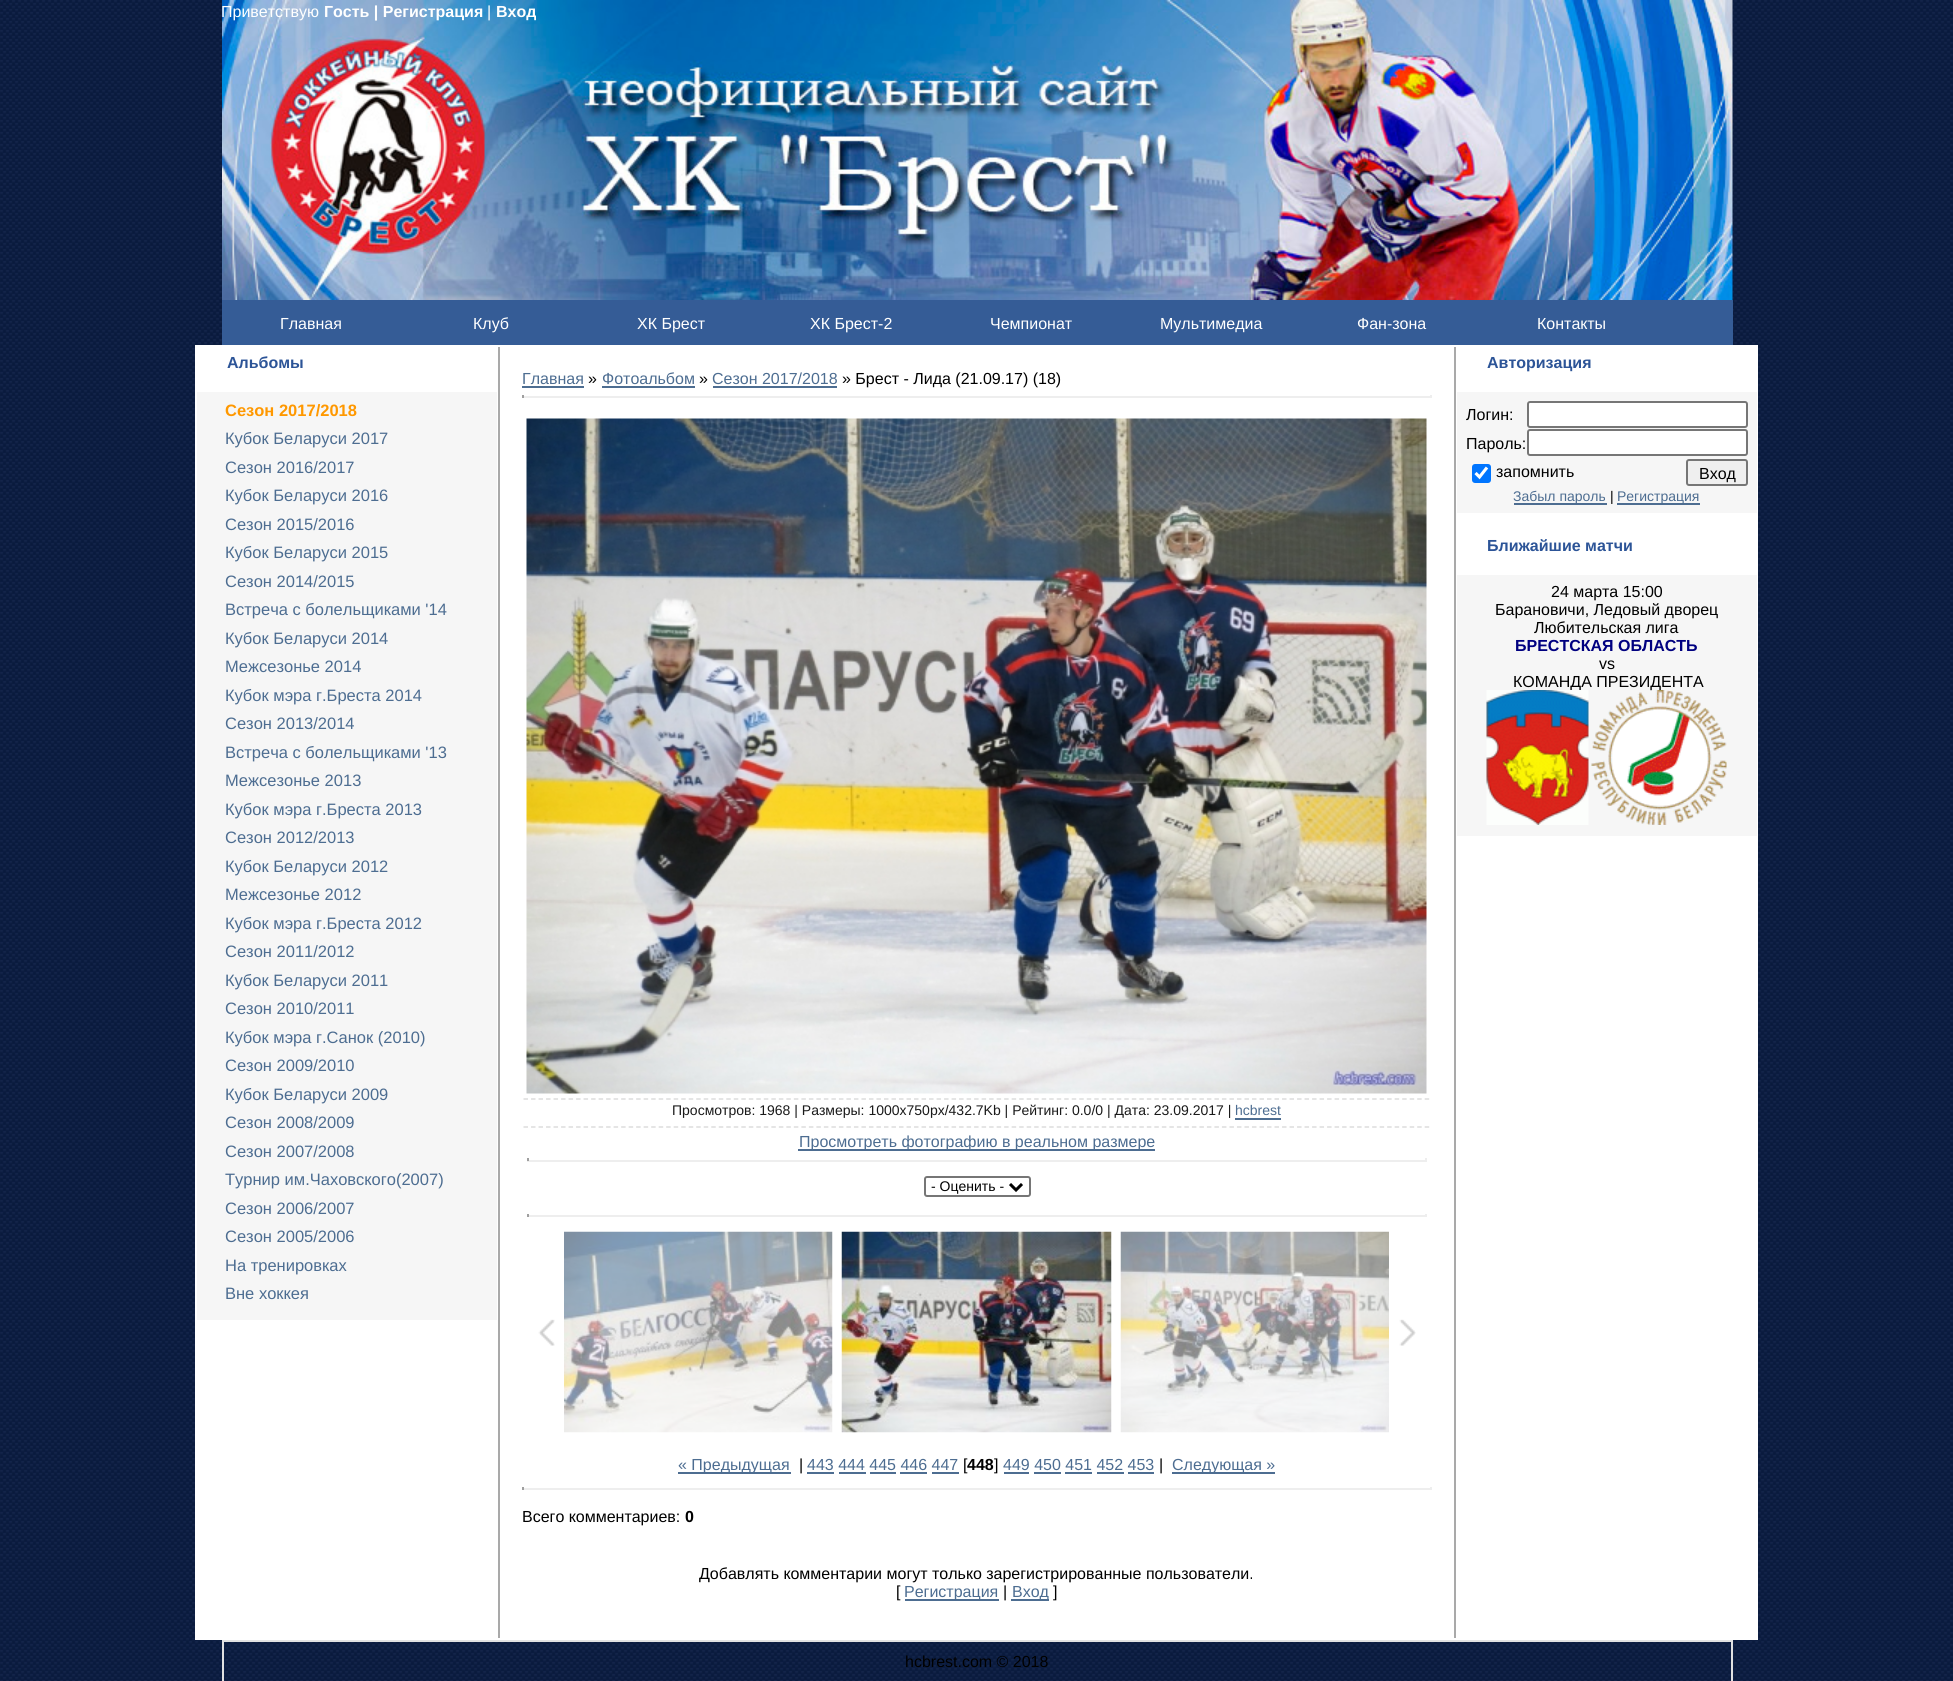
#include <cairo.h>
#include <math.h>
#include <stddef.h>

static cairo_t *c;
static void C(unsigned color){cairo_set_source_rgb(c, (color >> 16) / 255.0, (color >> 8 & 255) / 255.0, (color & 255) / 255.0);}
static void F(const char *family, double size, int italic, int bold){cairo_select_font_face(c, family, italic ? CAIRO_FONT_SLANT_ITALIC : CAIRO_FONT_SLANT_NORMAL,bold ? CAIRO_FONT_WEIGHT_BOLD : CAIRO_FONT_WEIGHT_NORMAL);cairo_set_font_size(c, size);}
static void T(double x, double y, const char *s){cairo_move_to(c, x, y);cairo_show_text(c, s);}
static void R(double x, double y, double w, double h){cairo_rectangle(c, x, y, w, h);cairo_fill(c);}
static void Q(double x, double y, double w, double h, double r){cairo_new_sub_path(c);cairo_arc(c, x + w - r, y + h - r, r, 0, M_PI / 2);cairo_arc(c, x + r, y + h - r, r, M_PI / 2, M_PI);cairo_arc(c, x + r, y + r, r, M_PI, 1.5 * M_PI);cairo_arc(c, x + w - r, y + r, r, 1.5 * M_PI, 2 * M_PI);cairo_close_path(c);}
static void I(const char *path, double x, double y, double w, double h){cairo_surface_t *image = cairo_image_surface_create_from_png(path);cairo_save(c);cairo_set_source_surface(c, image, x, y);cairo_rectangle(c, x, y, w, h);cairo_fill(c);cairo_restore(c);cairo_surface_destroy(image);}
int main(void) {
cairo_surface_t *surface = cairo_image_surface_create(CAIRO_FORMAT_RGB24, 1953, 1681);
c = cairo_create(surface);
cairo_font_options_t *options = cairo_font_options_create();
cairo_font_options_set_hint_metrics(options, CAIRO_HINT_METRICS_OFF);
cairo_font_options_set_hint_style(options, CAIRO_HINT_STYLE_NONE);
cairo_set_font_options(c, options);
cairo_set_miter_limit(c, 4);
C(0xffffff);
cairo_paint(c);
I("1.png",0,0,1953,1681);
I("2.png",222,0,1511,300);
F("Liberation Sans",16,0,0);
C(0xffffff);
T(221,17,"Приветствую");
F("Liberation Sans",16,0,1);
T(324,17,"Гость | Регистрация");
F("Liberation Sans",16,0,0);
T(487,17,"|");
F("Liberation Sans",16,0,1);
T(496,17,"Вход");
C(0x355c96);
R(222,300,1511,45);
F("Liberation Sans",16,0,0);
C(0xffffff);
T(280,329,"Главная");
T(473,329,"Клуб");
T(637,329,"ХК Брест");
T(810,329,"ХК Брест-2");
T(990,329,"Чемпионат");
T(1160,329,"Мультимедиа");
T(1357,329,"Фан-зона");
T(1537,329,"Контакты");
R(195,345,1563,1295);
F("Liberation Sans",16,0,1);
C(0x2c5497);
T(227,368,"Альбомы");
C(0xf6f6f6);
R(197,392,300,928);
F("Liberation Sans",16.5,0,1);
C(0xff9800);
T(225,416,"Сезон 2017/2018");
F("Liberation Sans",16.5,0,0);
C(0x4d6d91);
T(225,444,"Кубок Беларуси 2017");
T(225,473,"Сезон 2016/2017");
T(225,501,"Кубок Беларуси 2016");
T(225,530,"Сезон 2015/2016");
T(225,558,"Кубок Беларуси 2015");
T(225,587,"Сезон 2014/2015");
T(225,615,"Встреча с болельщиками '14");
T(225,644,"Кубок Беларуси 2014");
T(225,672,"Межсезонье 2014");
T(225,701,"Кубок мэра г.Бреста 2014");
T(225,729,"Сезон 2013/2014");
T(225,758,"Встреча с болельщиками '13");
T(225,786,"Межсезонье 2013");
T(225,815,"Кубок мэра г.Бреста 2013");
T(225,843,"Сезон 2012/2013");
T(225,872,"Кубок Беларуси 2012");
T(225,900,"Межсезонье 2012");
T(225,929,"Кубок мэра г.Бреста 2012");
T(225,957,"Сезон 2011/2012");
T(225,986,"Кубок Беларуси 2011");
T(225,1014,"Сезон 2010/2011");
T(225,1043,"Кубок мэра г.Санок (2010)");
T(225,1071,"Сезон 2009/2010");
T(225,1100,"Кубок Беларуси 2009");
T(225,1128,"Сезон 2008/2009");
T(225,1157,"Сезон 2007/2008");
T(225,1185,"Турнир им.Чаховского(2007)");
T(225,1214,"Сезон 2006/2007");
T(225,1242,"Сезон 2005/2006");
T(225,1271,"На тренировках");
T(225,1299,"Вне хоккея");
C(0xa9a9a9);
R(1454,347,2,1291);
R(498,347,2,1291);
F("Liberation Sans",16,0,0);
C(0x4d6d91);
T(522,384,"Главная");
R(522,386,62,2);
C(0x000000);
T(588,384,"»");
C(0x4d6d91);
T(602,384,"Фотоальбом");
R(602,386,93,2);
C(0x000000);
T(699,384,"»");
C(0x4d6d91);
T(712,384,"Сезон 2017/2018");
R(713,386,124,2);
C(0x000000);
T(842,384,"» Брест - Лида (21.09.17) (18)");
C(0xeeeeee);
R(1430,395,2,3);
R(522,396,909,2);
C(0x9f9f9f);
R(522,395,2,3);
I("3.png",526,418,901,676);
cairo_new_path(c);
cairo_move_to(c,523.5,1099);
cairo_line_to(c,1429.5,1099);
C(0xdddddd);
cairo_set_line_width(c,1.5);
cairo_set_dash(c,(double[]){4.5,3.01},2,0);
cairo_stroke(c);
cairo_new_path(c);
cairo_move_to(c,523.5,1127);
cairo_line_to(c,1429.5,1127);
cairo_stroke(c);
F("Liberation Sans",14,0,0);
C(0x1a1a1a);
T(672,1115,"Просмотров: 1968 | Размеры: 1000x750px/432.7Kb | Рейтинг: 0.0/0 | Дата: 23.09.2017 |");
C(0x4d6d91);
T(1235,1115,"hcbrest");
R(1235,1118,46,2);
R(798,1149,357,2);
F("Liberation Sans",16,0,0);
T(799,1147,"Просмотреть фотографию в реальном размере");
C(0xeeeeee);
R(1425,1158,2,3);
R(527,1160,900,2);
C(0x9f9f9f);
R(527,1158,2,3);
Q(925,1177,105,19,2);
C(0x767676);
cairo_set_line_width(c,2);
cairo_set_dash(c,NULL,0,0);
cairo_stroke(c);
cairo_new_path(c);
cairo_move_to(c,1010,1184);
cairo_line_to(c,1016,1190);
cairo_line_to(c,1022,1184);
C(0x000000);
cairo_set_line_width(c,3);
cairo_stroke(c);
F("Liberation Sans",14,0,0);
T(931,1191,"- Оценить -");
C(0xeeeeee);
R(1425,1214,2,3);
R(527,1215,900,2);
C(0x9f9f9f);
R(527,1214,2,3);
I("4.png",538,1319,17,27);
I("5.png",564,1231,269,202);
I("6.png",841,1231,271,202);
I("7.png",1120,1231,269,202);
I("8.png",1399,1319,17,27);
C(0x4d6d91);
R(678,1472,113,2);
F("Liberation Sans",16,0,0);
T(678,1470,"« Предыдущая");
C(0x000000);
T(799,1470,"|");
C(0x4d6d91);
T(807,1470,"443 444 445 446 447");
R(807,1472,27,2);
C(0x000000);
T(963,1470,"[");
F("Liberation Sans",16,0,1);
T(967,1470,"448");
F("Liberation Sans",16,0,0);
T(994,1470,"]");
C(0x4d6d91);
T(1003,1470,"449 450 451 452 453");
R(1004,1472,25,2);
C(0x000000);
T(1159,1470,"|");
C(0x4d6d91);
R(1172,1472,103,2);
T(1172,1470,"Следующая »");
R(839,1472,27,2);
R(870,1472,26,2);
R(900,1472,27,2);
R(932,1472,27,2);
R(1034,1472,27,2);
R(1065,1472,27,2);
R(1097,1472,27,2);
R(1128,1472,26,2);
C(0xeeeeee);
R(1430,1487,2,3);
R(522,1488,909,2);
C(0x9f9f9f);
R(522,1487,2,3);
C(0x000000);
T(522,1522,"Всего комментариев:");
F("Liberation Sans",16,0,1);
T(685,1522,"0");
F("Liberation Sans",16,0,0);
T(699,1579,"Добавлять комментарии могут только зарегистрированные пользователи.");
T(896,1597,"[");
C(0x4d6d91);
R(905,1599,94,2);
T(904,1597,"Регистрация");
C(0x000000);
T(1003,1597,"|");
C(0x4d6d91);
R(1011,1599,38,2);
T(1012,1597,"Вход");
C(0x000000);
T(1053,1597,"]");
F("Liberation Sans",16,0,1);
C(0x2c5497);
T(1487,368,"Авторизация");
C(0xf6f6f6);
R(1457,392,300,121);
F("Liberation Sans",16,0,0);
C(0x000000);
T(1466,420,"Логин:");
C(0xffffff);
Q(1528,402,219,25,2);
cairo_fill_preserve(c);
C(0x767676);
cairo_set_line_width(c,2);
cairo_stroke(c);
C(0x000000);
T(1466,449,"Пароль:");
C(0xffffff);
Q(1528,430,219,25,2);
cairo_fill_preserve(c);
C(0x767676);
cairo_stroke(c);
C(0x0075ff);
Q(1472,464,19,19,3);
cairo_fill(c);
cairo_new_path(c);
cairo_move_to(c,1475.5,473);
cairo_line_to(c,1479.5,477);
cairo_line_to(c,1487,467.5);
C(0xffffff);
cairo_set_line_width(c,3.1);
cairo_stroke(c);
C(0x000000);
T(1496,477,"запомнить");
C(0xefefef);
Q(1687,460,60,25,2);
cairo_fill_preserve(c);
C(0x767676);
cairo_set_line_width(c,2);
cairo_stroke(c);
C(0x000000);
T(1699,479,"Вход");
C(0x4d6d91);
R(1514,503,93,2);
F("Liberation Sans",14,0,0);
T(1513,501,"Забыл пароль");
C(0x000000);
T(1610,501,"|");
C(0x4d6d91);
R(1617,503,83,2);
T(1617,501,"Регистрация");
F("Liberation Sans",16,0,1);
C(0x2c5497);
T(1487,551,"Ближайшие матчи");
C(0xf6f6f6);
R(1457,575,300,261);
F("Liberation Sans",16,0,0);
C(0x000000);
T(1551,597,"24 марта 15:00");
T(1495,615,"Барановичи, Ледовый дворец");
T(1534,633,"Любительская лига");
F("Liberation Sans",16,0,1);
C(0x000080);
T(1515,651,"БРЕСТСКАЯ ОБЛАСТЬ");
F("Liberation Sans",16,0,0);
C(0x000000);
T(1599,669,"vs");
T(1513,687,"КОМАНДА ПРЕЗИДЕНТА");
I("9.png",1486,690,103,135);
I("10.png",1591,690,136,135);
cairo_rectangle(c,223,1641,1509,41);
C(0xe1e1e1);
cairo_stroke(c);
C(0x000000);
T(905,1667,"hcbrest.com © 2018");
cairo_surface_write_to_png(surface, "o.png");
cairo_font_options_destroy(options);
cairo_destroy(c);
cairo_surface_destroy(surface);
return 0;
}
